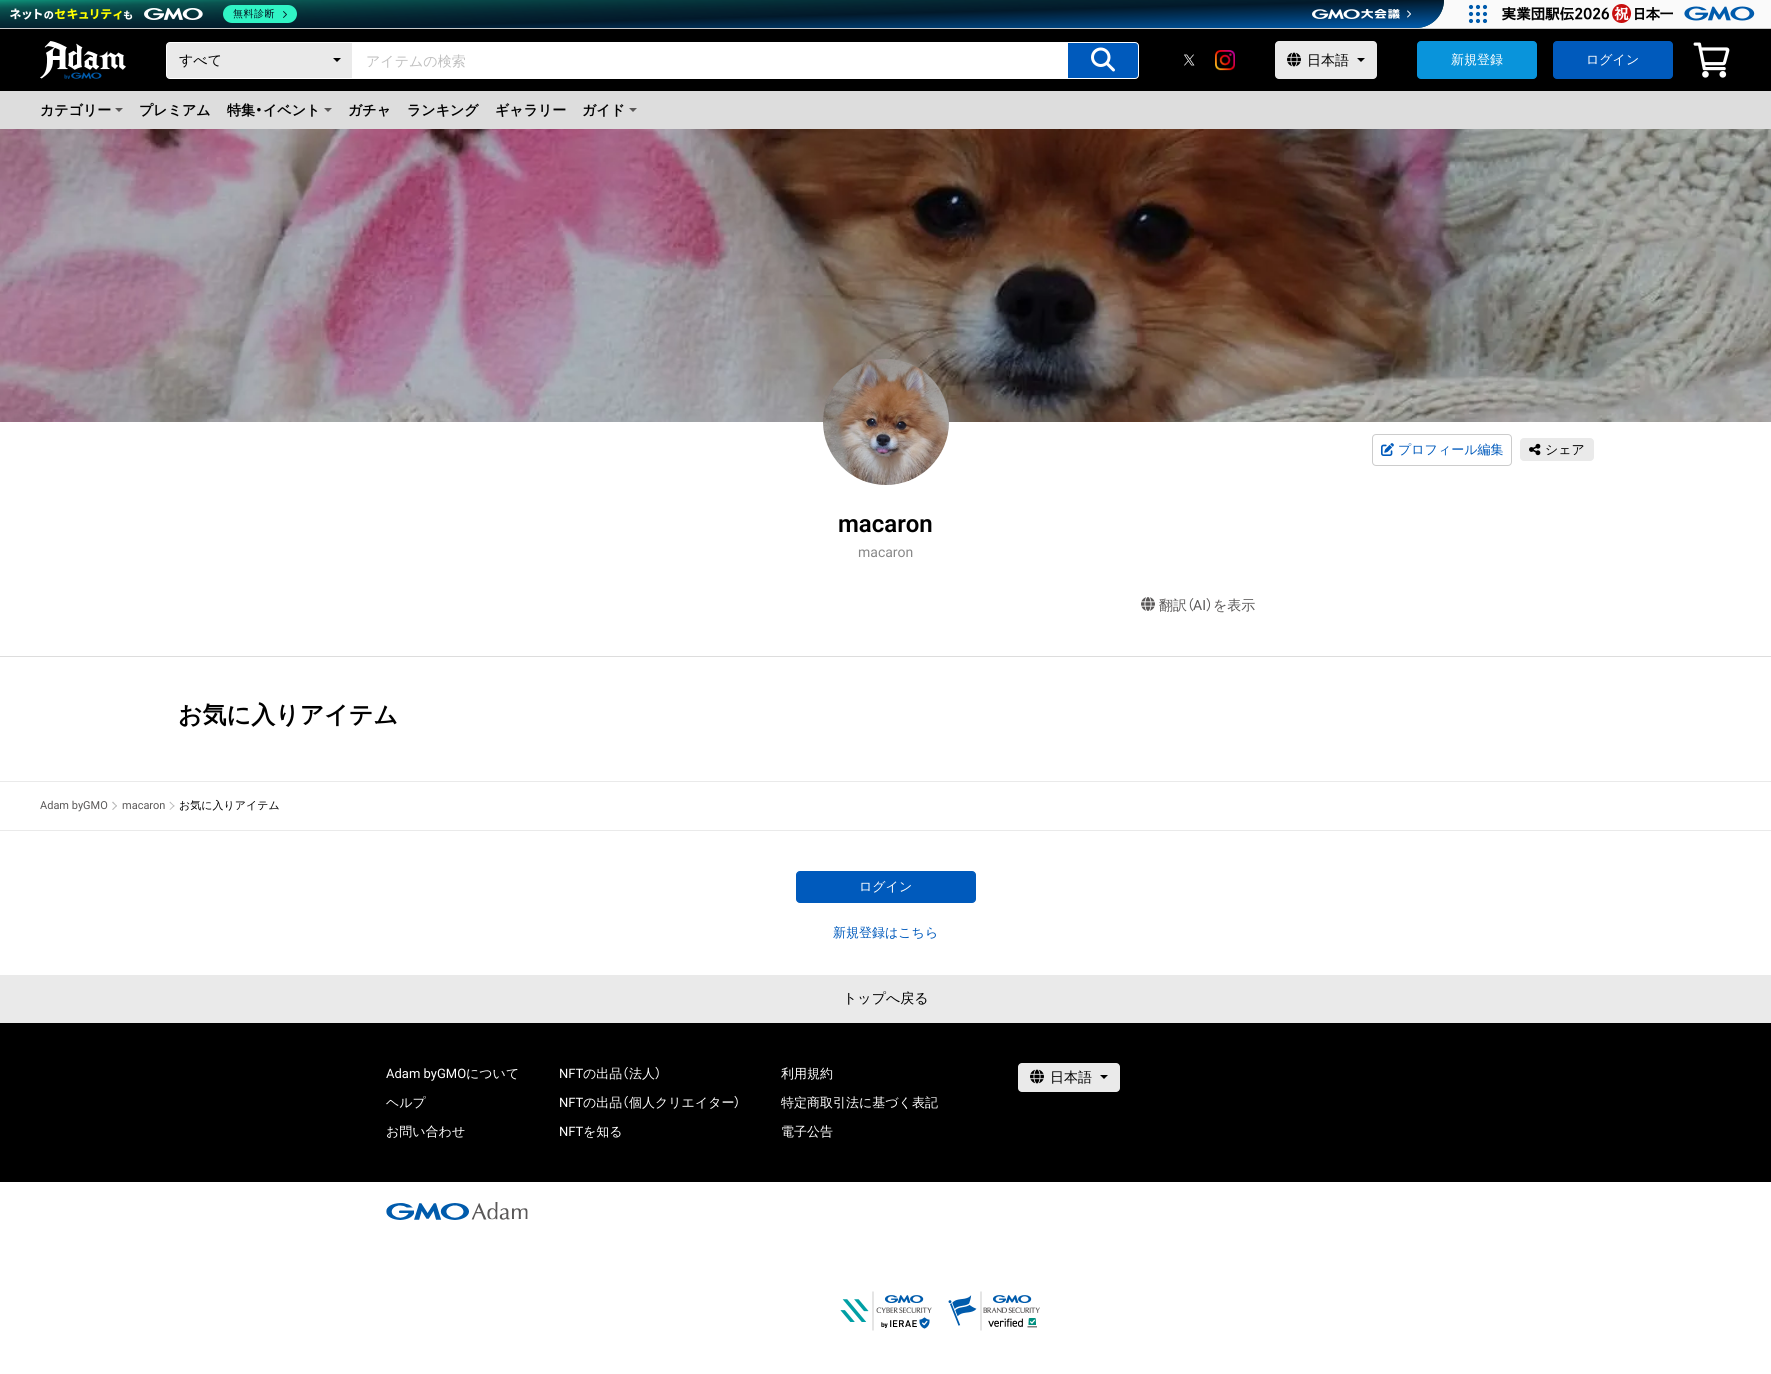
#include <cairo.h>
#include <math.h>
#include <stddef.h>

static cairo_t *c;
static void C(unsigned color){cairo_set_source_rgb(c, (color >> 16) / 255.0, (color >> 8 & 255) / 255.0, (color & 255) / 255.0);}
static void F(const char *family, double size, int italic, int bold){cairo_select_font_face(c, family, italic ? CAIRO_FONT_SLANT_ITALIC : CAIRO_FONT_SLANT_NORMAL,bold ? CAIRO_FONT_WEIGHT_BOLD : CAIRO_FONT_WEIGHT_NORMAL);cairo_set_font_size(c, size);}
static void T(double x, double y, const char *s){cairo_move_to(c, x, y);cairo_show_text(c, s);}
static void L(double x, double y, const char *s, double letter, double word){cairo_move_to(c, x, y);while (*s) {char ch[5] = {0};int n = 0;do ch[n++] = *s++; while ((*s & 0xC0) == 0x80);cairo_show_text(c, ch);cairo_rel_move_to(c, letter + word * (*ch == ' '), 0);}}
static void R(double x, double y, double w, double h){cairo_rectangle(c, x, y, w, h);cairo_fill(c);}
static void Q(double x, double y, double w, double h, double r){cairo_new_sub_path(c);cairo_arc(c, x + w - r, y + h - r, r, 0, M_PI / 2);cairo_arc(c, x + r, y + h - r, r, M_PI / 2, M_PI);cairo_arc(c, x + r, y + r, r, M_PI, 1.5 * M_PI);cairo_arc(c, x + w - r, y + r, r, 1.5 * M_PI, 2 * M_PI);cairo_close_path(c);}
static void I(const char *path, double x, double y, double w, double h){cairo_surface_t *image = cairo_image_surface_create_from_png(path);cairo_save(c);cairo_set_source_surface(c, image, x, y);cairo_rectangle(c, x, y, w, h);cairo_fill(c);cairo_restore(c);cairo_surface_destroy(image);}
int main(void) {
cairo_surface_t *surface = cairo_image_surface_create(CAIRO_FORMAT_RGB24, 1771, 1374);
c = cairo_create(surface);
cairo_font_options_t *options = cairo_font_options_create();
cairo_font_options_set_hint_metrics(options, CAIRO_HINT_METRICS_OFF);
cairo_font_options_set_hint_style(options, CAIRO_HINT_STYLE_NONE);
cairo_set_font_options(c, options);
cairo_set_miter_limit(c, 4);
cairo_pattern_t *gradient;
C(0xffffff);
cairo_paint(c);
C(0xfafafa);
R(1416,0,355,28);
C(0xc8c8c8);
R(0,28,1771,1);
gradient = cairo_pattern_create_linear(721,-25,723,53);
cairo_pattern_add_color_stop_rgba(gradient,0,0.075,0.831,0.647,1);
cairo_pattern_add_color_stop_rgba(gradient,.19,0.055,0.451,0.396,1);
cairo_pattern_add_color_stop_rgba(gradient,.45,0.043,0.302,0.294,1);
cairo_set_source(c,gradient);
cairo_pattern_destroy(gradient);
cairo_new_path(c);
cairo_move_to(c,0,0);
cairo_line_to(c,1444,0);
cairo_curve_to(c,1444,15.5,1431.5,28,1416,28);
cairo_line_to(c,0,28);
cairo_close_path(c);
cairo_fill(c);
gradient = cairo_pattern_create_linear(723,53,721,-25);
cairo_pattern_add_color_stop_rgba(gradient,0,0.004,0.612,0.851,1);
cairo_pattern_add_color_stop_rgba(gradient,.09,0,0.357,0.675,1);
cairo_pattern_add_color_stop_rgba(gradient,.45,0.008,0.098,0.165,1);
cairo_pattern_add_color_stop_rgba(gradient,1,0.008,0.098,0.165,0);
cairo_set_source(c,gradient);
cairo_pattern_destroy(gradient);
cairo_new_path(c);
cairo_move_to(c,0,0);
cairo_line_to(c,1444,0);
cairo_curve_to(c,1444,15.5,1431.5,28,1416,28);
cairo_line_to(c,0,28);
cairo_close_path(c);
cairo_fill(c);
I("1.png",10,8,193,12);
C(0x30f4c5);
Q(223,5,74,18,9);
cairo_fill(c);
F("WenQuanYi Zen Hei Medium",10,0,0);
C(0x021725);
L(233,17,"無料診断",.5,0);
cairo_new_path(c);
cairo_move_to(c,283.5,11.5);
cairo_line_to(c,286.5,14.5);
cairo_line_to(c,283.5,17.5);
cairo_set_line_width(c,.9);
cairo_set_line_cap(c,CAIRO_LINE_CAP_ROUND);
cairo_set_line_join(c,CAIRO_LINE_JOIN_ROUND);
cairo_stroke(c);
I("2.png",1312,9,99,10);
I("3.png",1468,4,20,20);
I("4.png",1502,4,253,19);
C(0x000000);
R(0,29,1771,62);
I("5.png",40,41,86,38);
C(0xeaeaea);
cairo_new_path(c);
cairo_move_to(c,170,42.5);
cairo_line_to(c,352.5,42.5);
cairo_line_to(c,352.5,78.5);
cairo_line_to(c,170,78.5);
cairo_curve_to(c,168,78.5,166.5,77,166.5,75);
cairo_line_to(c,166.5,46);
cairo_curve_to(c,166.5,44,168,42.5,170,42.5);
cairo_close_path(c);
cairo_fill_preserve(c);
C(0xffffff);
cairo_set_line_width(c,1);
cairo_set_line_cap(c,CAIRO_LINE_CAP_BUTT);
cairo_set_line_join(c,CAIRO_LINE_JOIN_MITER);
cairo_stroke(c);
F("WenQuanYi Zen Hei Medium",14,0,0);
C(0x000000);
T(179,65,"すべて");
cairo_new_path(c);
cairo_move_to(c,333,58);
cairo_line_to(c,341,58);
cairo_line_to(c,337,62);
cairo_close_path(c);
cairo_fill(c);
C(0xffffff);
R(353,42,714,37);
C(0xbfbfbf);
T(366,66,"アイテムの検索");
C(0x005abc);
cairo_new_path(c);
cairo_move_to(c,1067.5,42.5);
cairo_line_to(c,1135,42.5);
cairo_curve_to(c,1137,42.5,1138.5,44,1138.5,46);
cairo_line_to(c,1138.5,75);
cairo_curve_to(c,1138.5,77,1137,78.5,1135,78.5);
cairo_line_to(c,1067.5,78.5);
cairo_close_path(c);
cairo_fill_preserve(c);
C(0xffffff);
cairo_stroke(c);
I("6.png",1091,47,24,25);
I("7.png",1184,54,11,12);
I("8.png",1215,50,20,21);
C(0xeaeaea);
Q(1275,41,102,38,4);
cairo_fill(c);
I("9.png",1287,52,14,15);
C(0x000000);
T(1307,65,"日本語");
cairo_new_path(c);
cairo_move_to(c,1357,58);
cairo_line_to(c,1365,58);
cairo_line_to(c,1361,62);
cairo_close_path(c);
cairo_fill(c);
C(0x0994db);
Q(1417.5,41.5,119,37,3.5);
cairo_fill_preserve(c);
cairo_stroke(c);
F("WenQuanYi Zen Hei Medium",13,0,0);
C(0xffffff);
T(1451,64,"新規登録");
C(0x005abc);
Q(1553.5,41.5,119,37,3.5);
cairo_fill_preserve(c);
cairo_stroke(c);
C(0xffffff);
T(1586,64,"ログイン");
I("10.png",1693,42,37,36);
C(0xdddddd);
R(0,91,1771,38);
F("WenQuanYi Zen Hei",14,0,1);
C(0x000000);
T(40,115,"カテゴリー");
C(0x5a5858);
cairo_new_path(c);
cairo_move_to(c,115,108);
cairo_line_to(c,123,108);
cairo_line_to(c,119,112);
cairo_close_path(c);
cairo_fill(c);
C(0x000000);
T(139,115,"プレミアム");
T(227,115,"特集");
F("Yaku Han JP",14,0,1);
T(255,115,"・");
F("WenQuanYi Zen Hei",14,0,1);
T(263,115,"イベント");
C(0x5a5858);
cairo_new_path(c);
cairo_move_to(c,324,108);
cairo_line_to(c,332,108);
cairo_line_to(c,328,112);
cairo_close_path(c);
cairo_fill(c);
C(0x000000);
T(348,115,"ガチャ");
T(407,115,"ランキング");
T(495,115,"ギャラリー");
T(582,115,"ガイド");
C(0x5a5858);
cairo_new_path(c);
cairo_move_to(c,629,108);
cairo_line_to(c,637,108);
cairo_line_to(c,633,112);
cairo_close_path(c);
cairo_fill(c);
C(0xdddddd);
R(0,656,1771,1);
I("11.png",0,129,1771,293);
I("12.png",823,359,126,126);
Q(1372.5,434.5,139,31,3.5);
C(0xcccccc);
cairo_stroke(c);
I("13.png",1381,443,13,13);
F("WenQuanYi Zen Hei Medium",13,0,0);
C(0x005abc);
T(1398,454,"プロフィール編集");
C(0xeaeaea);
Q(1520.5,438.5,73,22,3.5);
cairo_fill_preserve(c);
cairo_stroke(c);
I("14.png",1529,443,12,13);
C(0x000000);
T(1545,454,"シェア");
F("Roboto SemiBold",24,0,0);
T(838,532,"macaron");
F("Roboto",14,0,0);
C(0x888888);
T(858,557,"macaron");
I("15.png",1141,597,14,14);
F("WenQuanYi Zen Hei Medium",14,0,0);
C(0x5a5858);
T(1159,610,"翻訳");
F("Yaku Han JP",14,0,0);
T(1187,610,"（");
F("Roboto",14,0,0);
T(1193,610,"AI");
F("Yaku Han JP",14,0,0);
T(1206,610,"）");
F("WenQuanYi Zen Hei Medium",14,0,0);
T(1213,610,"を表示");
F("WenQuanYi Zen Hei",24,0,1);
C(0x000000);
T(178,723,"お気に入りアイテム");
C(0xeaeaea);
R(0,781,1771,1);
F("Roboto",11,0,0);
C(0x5a5858);
T(40,809,"Adam byGMO");
C(0xb8b8b8);
cairo_new_path(c);
cairo_move_to(c,113,801.5);
cairo_line_to(c,117,806);
cairo_line_to(c,116.5,806.5);
cairo_line_to(c,112,802.5);
cairo_close_path(c);
cairo_fill(c);
C(0x5a5858);
T(122,809,"macaron");
C(0xb8b8b8);
cairo_new_path(c);
cairo_move_to(c,116.5,805);
cairo_line_to(c,117,806);
cairo_line_to(c,113,810);
cairo_line_to(c,112,809.5);
cairo_close_path(c);
cairo_move_to(c,170,801.5);
cairo_line_to(c,174.5,806);
cairo_line_to(c,174,806.5);
cairo_line_to(c,169.5,802.5);
cairo_close_path(c);
cairo_fill(c);
cairo_new_path(c);
cairo_move_to(c,174,805);
cairo_line_to(c,174.5,806);
cairo_line_to(c,170,810);
cairo_line_to(c,169.5,809.5);
cairo_close_path(c);
cairo_fill(c);
F("WenQuanYi Zen Hei Medium",11,0,0);
C(0x000000);
T(179,809,"お気に入りアイテム");
C(0xeaeaea);
R(0,830,1771,1);
C(0x005abc);
Q(796.5,871.5,179,31,3.5);
cairo_fill_preserve(c);
cairo_stroke(c);
F("WenQuanYi Zen Hei Medium",13,0,0);
C(0xffffff);
T(859,891,"ログイン");
C(0x005abc);
T(833,937,"新規登録はこちら");
C(0x000000);
R(0,1023,1771,159);
C(0xeaeaea);
R(0,975,1771,48);
F("WenQuanYi Zen Hei Medium",14,0,0);
C(0x000000);
T(843,1003,"トップへ戻る");
F("Roboto",13,0,0);
C(0xffffff);
T(386,1078,"Adam byGMO");
F("WenQuanYi Zen Hei Medium",13,0,0);
T(466,1078,"について");
T(386,1107,"ヘルプ");
T(386,1136,"お問い合わせ");
F("Roboto",13,0,0);
T(559,1078,"NFT");
F("WenQuanYi Zen Hei Medium",13,0,0);
T(583,1078,"の出品");
F("Yaku Han JP",13,0,0);
T(622,1078,"（");
F("WenQuanYi Zen Hei Medium",13,0,0);
T(629,1078,"法人");
F("Yaku Han JP",13,0,0);
T(655,1078,"）");
F("Roboto",13,0,0);
T(559,1107,"NFT");
F("WenQuanYi Zen Hei Medium",13,0,0);
T(583,1107,"の出品");
F("Yaku Han JP",13,0,0);
T(622,1107,"（");
F("WenQuanYi Zen Hei Medium",13,0,0);
T(629,1107,"個人クリエイター");
F("Yaku Han JP",13,0,0);
T(734,1107,"）");
F("Roboto",13,0,0);
T(559,1136,"NFT");
F("WenQuanYi Zen Hei Medium",13,0,0);
T(583,1136,"を知る");
T(781,1078,"利用規約");
T(781,1107,"特定商取引法に基づく表記");
T(781,1136,"電子公告");
C(0xeaeaea);
Q(1018,1063,102,29,4);
cairo_fill(c);
I("9.png",1030,1069,14,15);
F("WenQuanYi Zen Hei Medium",14,0,0);
C(0x000000);
T(1050,1082,"日本語");
cairo_new_path(c);
cairo_move_to(c,1100,1075);
cairo_line_to(c,1108,1075);
cairo_line_to(c,1104,1079);
cairo_close_path(c);
cairo_fill(c);
I("16.png",386,1202,142,18);
I("17.png",840,1291,92,40);
I("18.png",948,1291,92,40);
cairo_surface_write_to_png(surface, "o.png");
cairo_font_options_destroy(options);
cairo_destroy(c);
cairo_surface_destroy(surface);
return 0;
}
